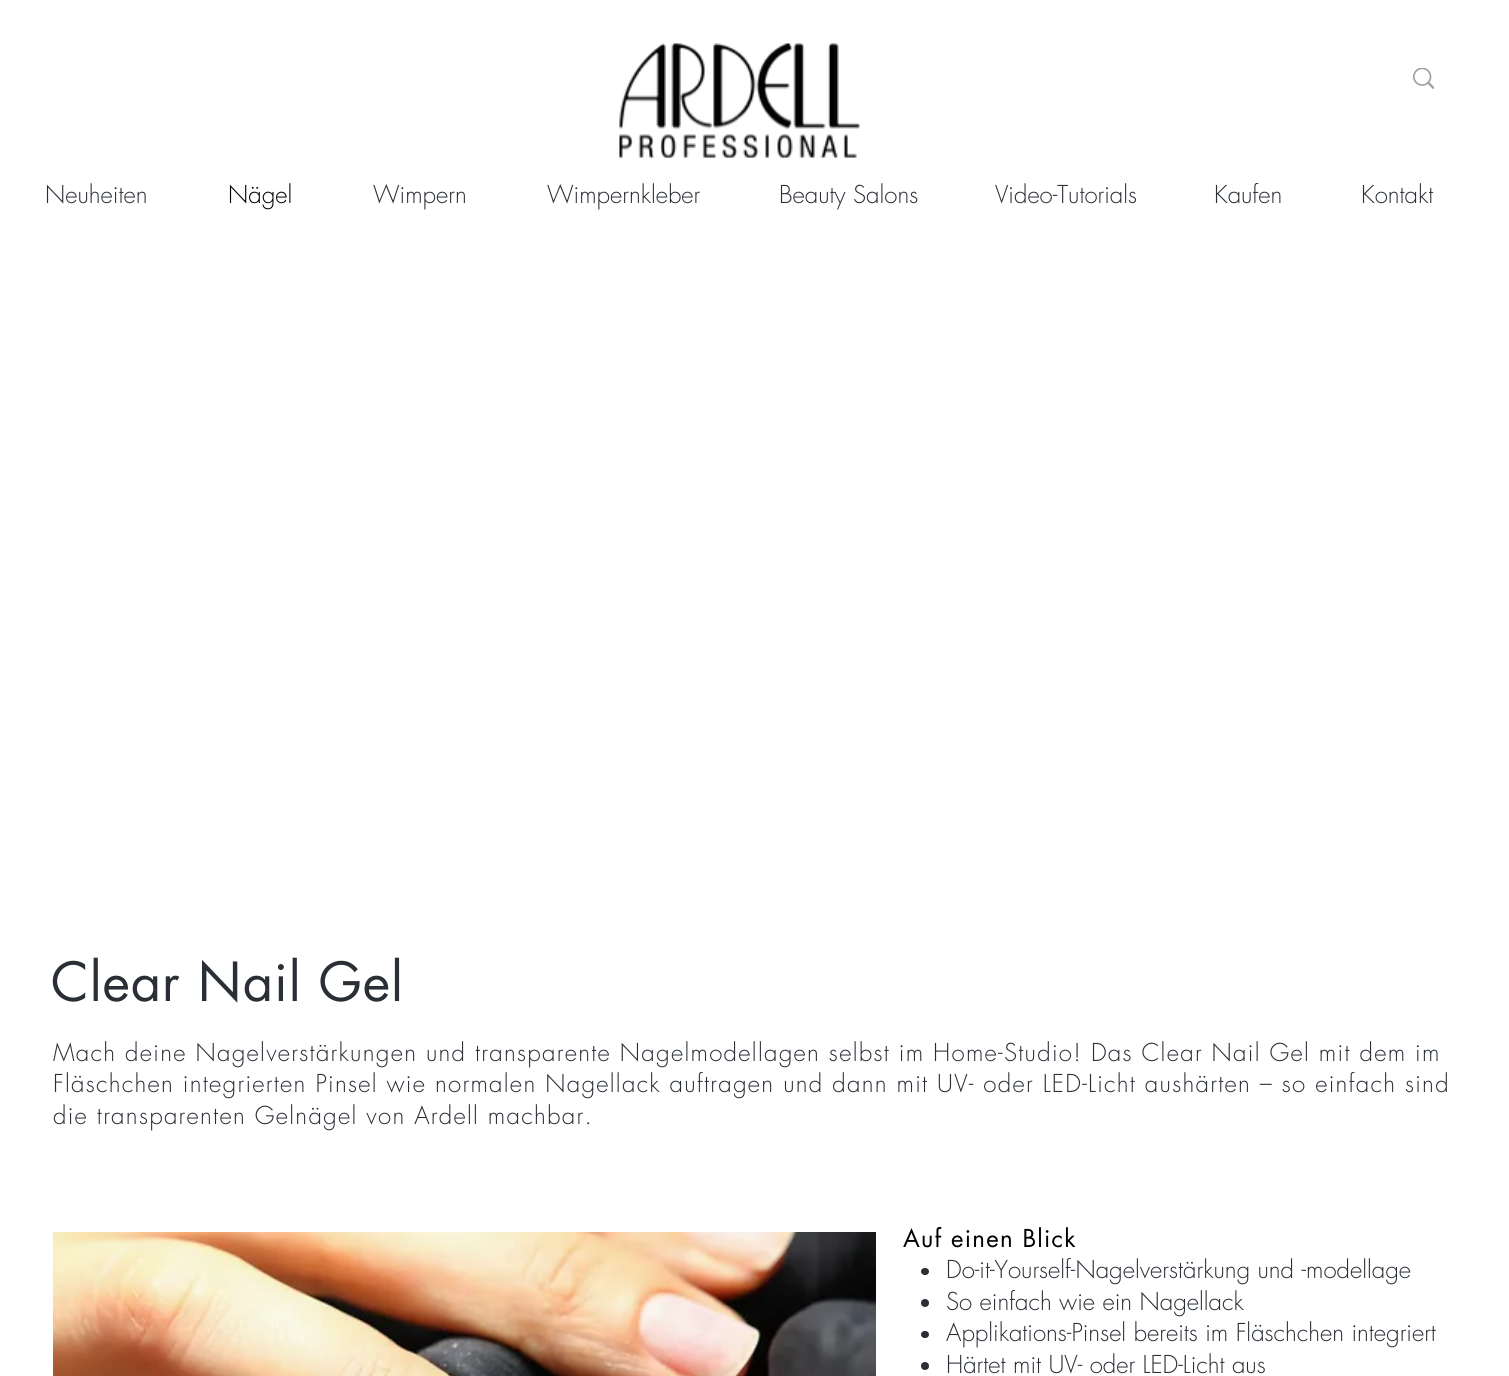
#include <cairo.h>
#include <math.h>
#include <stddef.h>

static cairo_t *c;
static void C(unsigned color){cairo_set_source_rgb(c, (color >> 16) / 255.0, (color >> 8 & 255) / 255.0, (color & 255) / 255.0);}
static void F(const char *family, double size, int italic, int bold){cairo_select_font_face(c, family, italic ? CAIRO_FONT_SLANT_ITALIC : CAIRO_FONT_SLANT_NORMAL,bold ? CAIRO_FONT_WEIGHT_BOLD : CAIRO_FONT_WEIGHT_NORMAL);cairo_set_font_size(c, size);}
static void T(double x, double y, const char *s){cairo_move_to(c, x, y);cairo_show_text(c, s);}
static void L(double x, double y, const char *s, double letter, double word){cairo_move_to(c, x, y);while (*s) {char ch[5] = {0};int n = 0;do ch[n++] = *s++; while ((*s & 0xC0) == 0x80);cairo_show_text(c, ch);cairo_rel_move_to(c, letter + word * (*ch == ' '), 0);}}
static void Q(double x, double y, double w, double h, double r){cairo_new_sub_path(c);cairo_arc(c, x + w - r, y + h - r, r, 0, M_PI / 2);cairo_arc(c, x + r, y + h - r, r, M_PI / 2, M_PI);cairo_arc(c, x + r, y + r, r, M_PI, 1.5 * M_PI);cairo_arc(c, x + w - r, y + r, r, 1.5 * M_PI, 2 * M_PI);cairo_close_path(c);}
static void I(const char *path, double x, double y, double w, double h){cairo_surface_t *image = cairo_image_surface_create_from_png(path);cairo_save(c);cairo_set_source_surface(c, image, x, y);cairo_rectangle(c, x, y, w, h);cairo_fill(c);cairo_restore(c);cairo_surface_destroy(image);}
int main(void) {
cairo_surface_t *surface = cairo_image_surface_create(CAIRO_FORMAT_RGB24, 1509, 1376);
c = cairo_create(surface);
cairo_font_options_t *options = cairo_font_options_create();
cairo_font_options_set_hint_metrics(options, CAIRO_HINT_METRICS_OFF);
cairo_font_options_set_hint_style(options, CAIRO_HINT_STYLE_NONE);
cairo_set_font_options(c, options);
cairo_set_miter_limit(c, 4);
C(0xffffff);
cairo_paint(c);
I("1.png",619,43,241,115);
I("2.png",1413,68,21,21);
F("futura Light",24,0,0);
C(0x2a2f36);
T(45,203,"Neuheiten");
C(0x000000);
T(228,203,"Nägel");
C(0x2a2f36);
T(373,203,"Wimpern");
T(547,203,"Wimpernkleber");
T(779,203,"Beauty Salons");
T(995,203,"Video-Tutorials");
T(1214,203,"Kaufen");
T(1361,203,"Kontakt");
F("futura",52.5,0,0);
L(51,1001,"Clear Nail Gel",1,0);
F("futura Light",24,0,0);
L(53,1061,"Mach deine Nagelverstärkungen und transparente Nagelmodellagen selbst im Home-Studio! Das Clear Nail Gel mit dem im",1.28,0);
L(53,1092,"Fläschchen integrierten Pinsel wie normalen Nagellack auftragen und dann mit UV- oder LED-Licht aushärten – so einfach sind",1.28,0);
L(53,1124,"die transparenten Gelnägel von Ardell machbar.",1.28,0);
I("3.png",53,1232,823,144);
F("futura",24,0,0);
C(0x000000);
L(903,1247,"Auf einen Blick",1.25,0);
C(0x2a2f36);
Q(921,1268,8,7,3.5);
cairo_fill(c);
F("futura Light",24,0,0);
T(946,1278,"Do-it-Yourself-Nagelverstärkung und -modellage");
cairo_new_path(c);
cairo_arc(c,925,1303,4,0,2 * M_PI);
cairo_fill(c);
T(946,1310,"So einfach wie ein Nagellack");
Q(921,1331,8,7,3.5);
cairo_fill(c);
T(946,1341,"Applikations-Pinsel bereits im Fläschchen integriert");
cairo_new_path(c);
cairo_arc(c,925,1366,4,0,2 * M_PI);
cairo_fill(c);
T(946,1373,"Härtet mit UV- oder LED-Licht aus");
cairo_surface_write_to_png(surface, "o.png");
cairo_font_options_destroy(options);
cairo_destroy(c);
cairo_surface_destroy(surface);
return 0;
}
